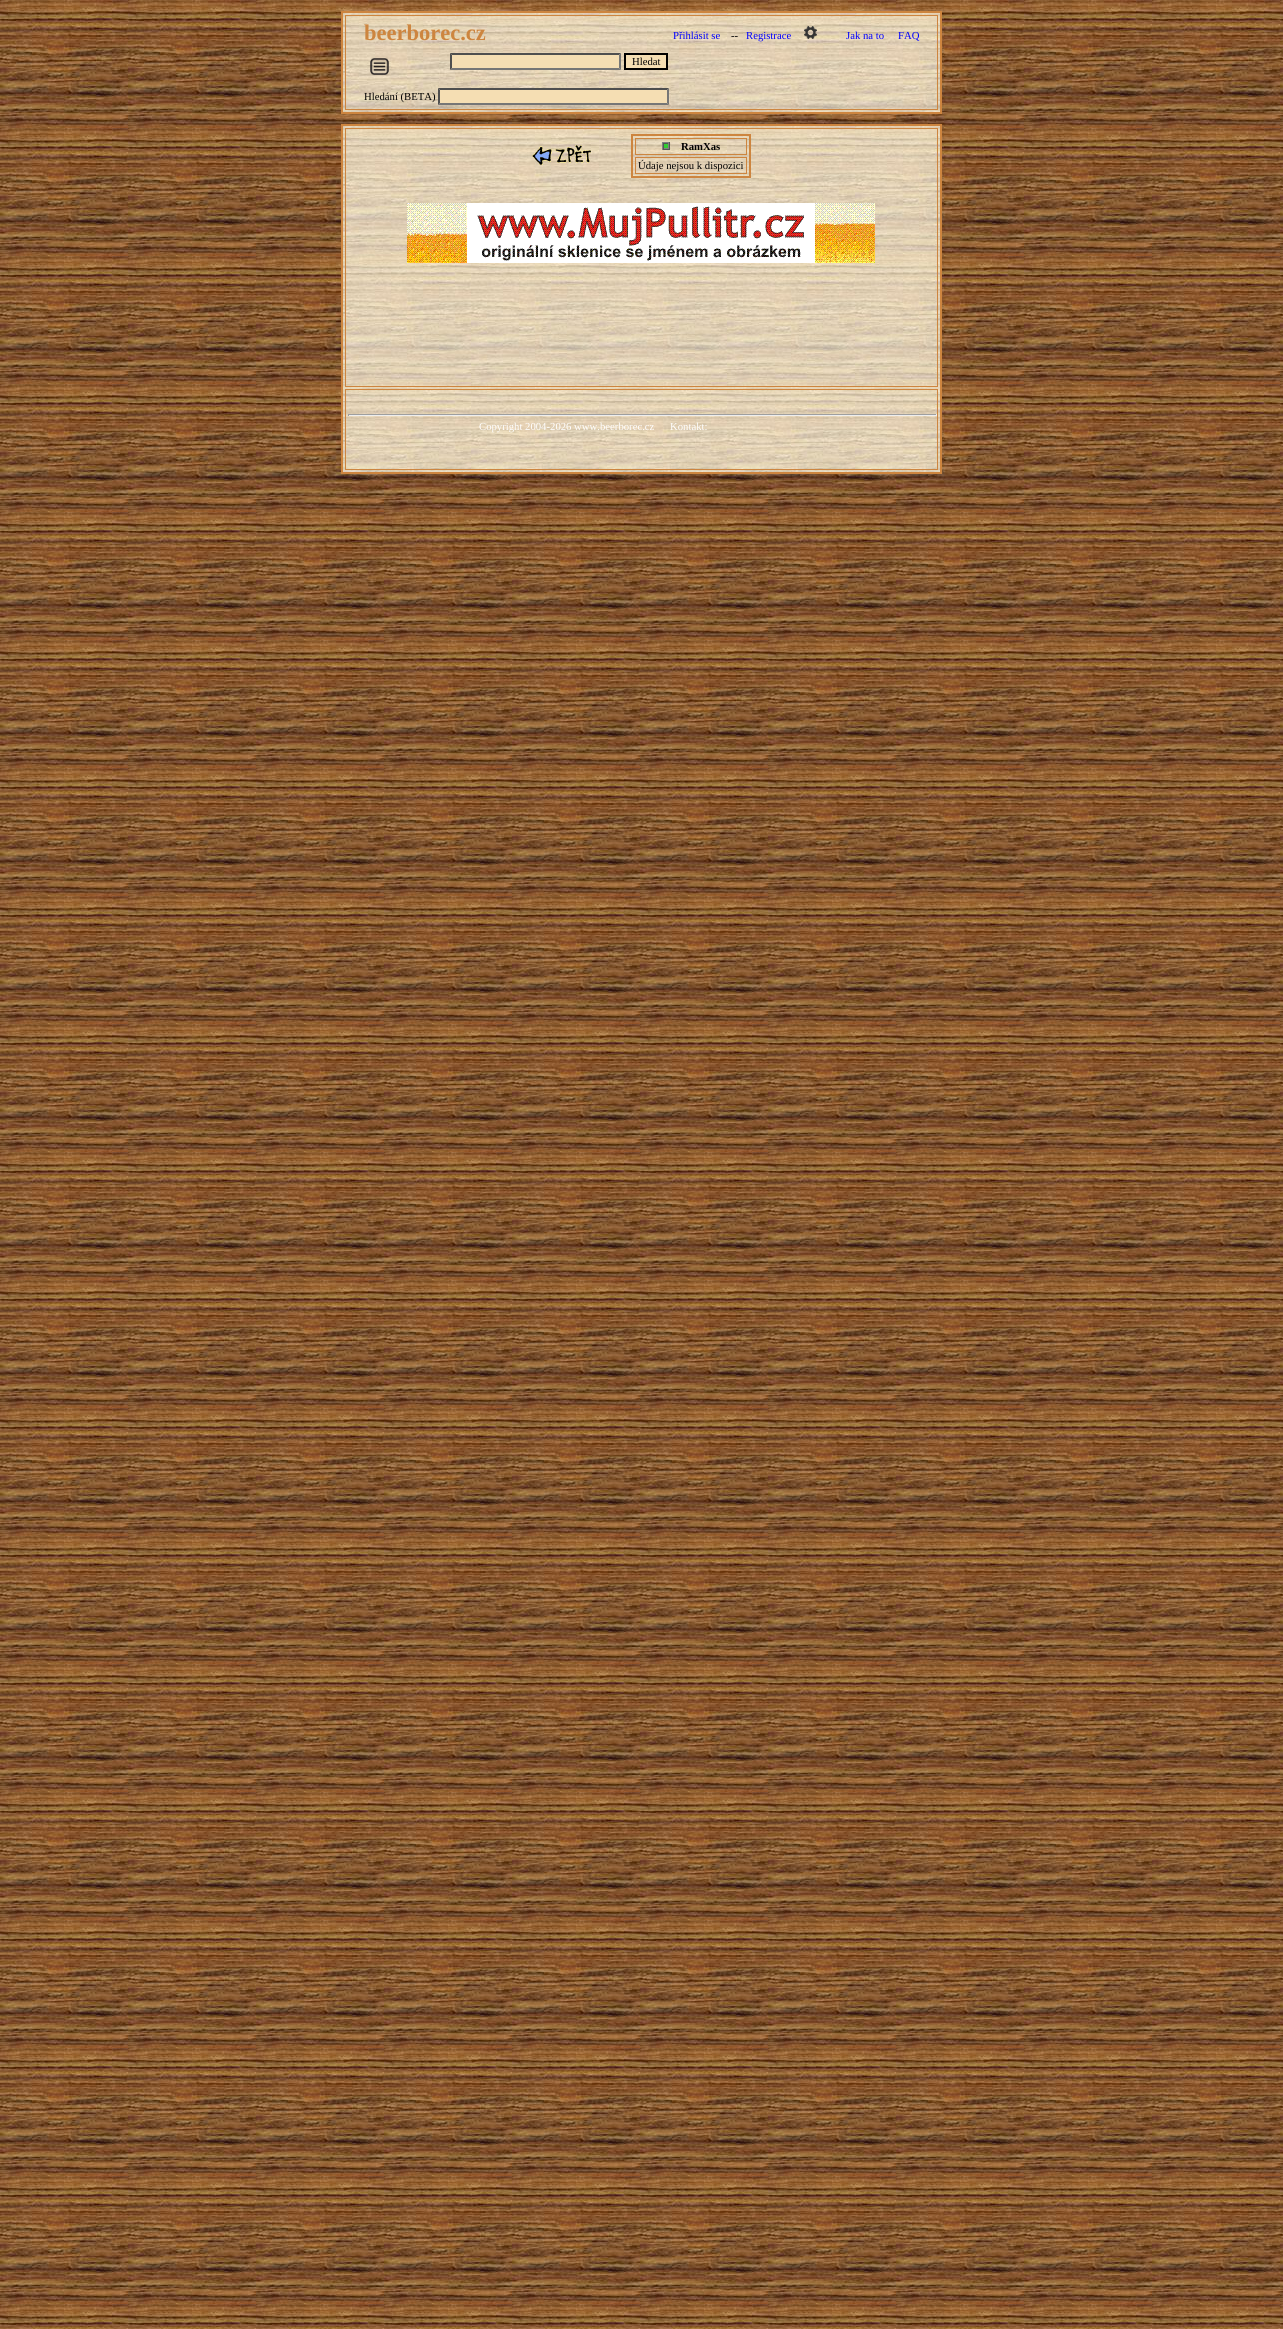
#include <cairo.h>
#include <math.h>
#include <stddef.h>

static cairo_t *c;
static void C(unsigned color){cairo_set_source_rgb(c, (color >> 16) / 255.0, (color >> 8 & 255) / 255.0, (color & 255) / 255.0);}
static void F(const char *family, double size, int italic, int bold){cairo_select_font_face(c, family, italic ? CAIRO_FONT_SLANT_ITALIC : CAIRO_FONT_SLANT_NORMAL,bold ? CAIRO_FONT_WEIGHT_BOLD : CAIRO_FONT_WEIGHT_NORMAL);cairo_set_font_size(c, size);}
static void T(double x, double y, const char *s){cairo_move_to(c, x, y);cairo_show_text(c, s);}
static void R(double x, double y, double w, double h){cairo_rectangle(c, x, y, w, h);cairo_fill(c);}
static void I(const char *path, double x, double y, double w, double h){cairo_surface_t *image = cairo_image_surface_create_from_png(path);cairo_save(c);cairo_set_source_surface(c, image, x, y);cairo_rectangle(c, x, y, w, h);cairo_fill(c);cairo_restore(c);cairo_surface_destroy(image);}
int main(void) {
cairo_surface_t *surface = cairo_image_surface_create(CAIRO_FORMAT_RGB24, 1283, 2329);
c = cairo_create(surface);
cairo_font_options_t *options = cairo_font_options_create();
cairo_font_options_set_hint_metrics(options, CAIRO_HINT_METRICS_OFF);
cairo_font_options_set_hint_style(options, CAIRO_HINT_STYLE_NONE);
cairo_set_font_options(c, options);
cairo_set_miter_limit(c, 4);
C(0xffffff);
cairo_paint(c);
I("1.png",0,0,1283,2329);
I("2.png",343,13,597,99);
cairo_rectangle(c,342,12,599,101);
C(0xcd853f);
cairo_stroke(c);
cairo_rectangle(c,345.5,15.5,592,94);
cairo_set_line_width(c,1);
cairo_stroke(c);
F("Liberation Serif",22.5,0,1);
T(364,40,"beerborec.cz");
F("Liberation Serif",10.7,0,0);
C(0x0000ff);
T(673,39,"Přihlásit se");
C(0x000000);
T(731,39,"--");
C(0x0000ff);
T(746,39,"Registrace");
I("3.png",804,26,13,13);
T(846,39,"Jak na to");
T(898,39,"FAQ");
I("4.png",370,58,19,17);
C(0xf5deb3);
R(450,53,171,17);
C(0x4f4f4f);
cairo_new_path(c);
cairo_move_to(c,450,53);
cairo_line_to(c,621,53);
cairo_line_to(c,619,55);
cairo_line_to(c,452,55);
cairo_close_path(c);
cairo_fill(c);
C(0x767676);
cairo_new_path(c);
cairo_move_to(c,621,53);
cairo_line_to(c,621,70);
cairo_line_to(c,619,68);
cairo_line_to(c,619,55);
cairo_close_path(c);
cairo_fill(c);
cairo_new_path(c);
cairo_move_to(c,621,70);
cairo_line_to(c,450,70);
cairo_line_to(c,452,68);
cairo_line_to(c,619,68);
cairo_close_path(c);
cairo_fill(c);
C(0x4f4f4f);
cairo_new_path(c);
cairo_move_to(c,450,70);
cairo_line_to(c,450,53);
cairo_line_to(c,452,55);
cairo_line_to(c,452,68);
cairo_close_path(c);
cairo_fill(c);
C(0xf5deb3);
cairo_rectangle(c,625,54,42,15);
cairo_fill_preserve(c);
C(0x000000);
cairo_set_line_width(c,2);
cairo_stroke(c);
T(632,65,"Hledat");
T(364,100,"Hledání (BETA)");
C(0xf5deb3);
R(438,88,231,17);
C(0x4f4f4f);
cairo_new_path(c);
cairo_move_to(c,438,88);
cairo_line_to(c,669,88);
cairo_line_to(c,667,90);
cairo_line_to(c,440,90);
cairo_close_path(c);
cairo_fill(c);
C(0x767676);
cairo_new_path(c);
cairo_move_to(c,669,88);
cairo_line_to(c,669,105);
cairo_line_to(c,667,103);
cairo_line_to(c,667,90);
cairo_close_path(c);
cairo_fill(c);
cairo_new_path(c);
cairo_move_to(c,669,105);
cairo_line_to(c,438,105);
cairo_line_to(c,440,103);
cairo_line_to(c,667,103);
cairo_close_path(c);
cairo_fill(c);
C(0x4f4f4f);
cairo_new_path(c);
cairo_move_to(c,438,105);
cairo_line_to(c,438,88);
cairo_line_to(c,440,90);
cairo_line_to(c,440,103);
cairo_close_path(c);
cairo_fill(c);
I("5.png",343,126,597,346);
cairo_rectangle(c,342,125,599,348);
C(0xcd853f);
cairo_stroke(c);
cairo_rectangle(c,345.5,128.5,592,258);
cairo_set_line_width(c,1);
cairo_stroke(c);
I("6.png",532,145,59,20);
cairo_rectangle(c,632,135,118,42);
cairo_set_line_width(c,2);
cairo_stroke(c);
cairo_rectangle(c,635.5,138.5,111,16);
cairo_set_line_width(c,1);
cairo_stroke(c);
C(0x808080);
R(662,142,8,1);
C(0x555555);
R(669,142,1,8);
R(662,149,8,1);
C(0x808080);
R(662,142,1,8);
C(0x555555);
R(663,143,6,1);
C(0x808080);
R(668,143,1,6);
R(663,148,6,1);
C(0x555555);
R(663,143,1,6);
C(0x32cd32);
R(664,144,4,4);
F("Liberation Serif",10.7,0,1);
C(0x000000);
T(681,150,"RamXas");
cairo_rectangle(c,635.5,157.5,111,16);
C(0xcd853f);
cairo_stroke(c);
F("Liberation Serif",10.7,0,0);
C(0x000000);
T(638,169,"Údaje nejsou k dispozici");
I("7.png",407,203,468,60);
cairo_rectangle(c,345.5,389.5,592,80);
C(0xcd853f);
cairo_stroke(c);
C(0x9f9f9f);
R(348,414,589,1);
C(0xeeeeee);
R(936,414,1,2);
R(348,415,589,1);
C(0x9f9f9f);
R(348,414,1,2);
C(0xffffff);
T(479,430,"Copyright 2004-2026 www.beerborec.cz");
T(670,430,"Kontakt:");
cairo_surface_write_to_png(surface, "o.png");
cairo_font_options_destroy(options);
cairo_destroy(c);
cairo_surface_destroy(surface);
return 0;
}
